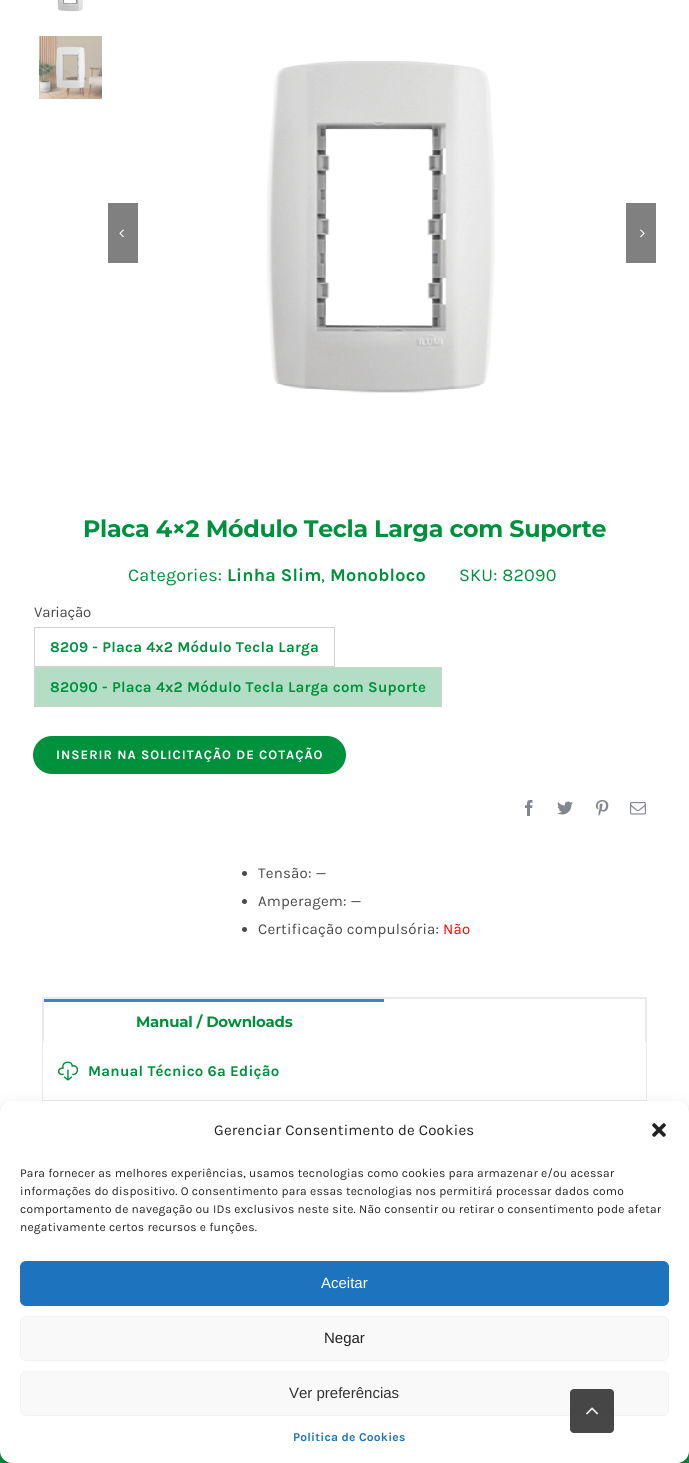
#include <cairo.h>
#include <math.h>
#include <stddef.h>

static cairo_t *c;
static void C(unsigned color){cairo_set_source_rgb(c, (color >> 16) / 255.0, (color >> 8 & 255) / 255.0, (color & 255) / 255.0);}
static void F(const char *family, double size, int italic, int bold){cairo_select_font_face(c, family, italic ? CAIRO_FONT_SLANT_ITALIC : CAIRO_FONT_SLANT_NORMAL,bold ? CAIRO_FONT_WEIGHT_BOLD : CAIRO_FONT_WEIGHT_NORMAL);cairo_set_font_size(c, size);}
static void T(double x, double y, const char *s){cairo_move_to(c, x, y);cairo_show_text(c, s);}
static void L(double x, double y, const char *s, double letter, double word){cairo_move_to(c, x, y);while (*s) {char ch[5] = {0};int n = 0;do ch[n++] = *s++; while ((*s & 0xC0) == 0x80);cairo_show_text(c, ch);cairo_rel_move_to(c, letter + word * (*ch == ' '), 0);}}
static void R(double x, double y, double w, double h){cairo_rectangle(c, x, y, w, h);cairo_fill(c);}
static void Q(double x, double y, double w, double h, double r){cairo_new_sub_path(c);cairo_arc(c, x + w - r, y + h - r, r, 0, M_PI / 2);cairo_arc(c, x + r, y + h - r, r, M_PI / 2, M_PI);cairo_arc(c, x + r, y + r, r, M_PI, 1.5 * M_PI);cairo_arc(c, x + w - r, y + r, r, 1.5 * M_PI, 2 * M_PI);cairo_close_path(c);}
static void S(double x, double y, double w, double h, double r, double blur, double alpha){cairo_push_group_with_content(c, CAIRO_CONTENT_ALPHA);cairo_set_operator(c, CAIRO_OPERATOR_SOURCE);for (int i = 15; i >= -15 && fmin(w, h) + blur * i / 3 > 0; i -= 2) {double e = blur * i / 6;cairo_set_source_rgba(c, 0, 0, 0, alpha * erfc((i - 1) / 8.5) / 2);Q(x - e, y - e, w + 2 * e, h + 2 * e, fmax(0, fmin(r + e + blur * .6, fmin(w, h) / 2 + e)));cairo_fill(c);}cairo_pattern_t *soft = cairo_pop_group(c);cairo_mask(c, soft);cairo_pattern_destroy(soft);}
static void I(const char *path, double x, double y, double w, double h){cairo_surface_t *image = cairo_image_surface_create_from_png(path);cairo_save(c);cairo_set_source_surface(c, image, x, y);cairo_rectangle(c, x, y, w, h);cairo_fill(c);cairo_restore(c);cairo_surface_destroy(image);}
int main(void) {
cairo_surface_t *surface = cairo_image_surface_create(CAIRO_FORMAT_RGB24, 689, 1463);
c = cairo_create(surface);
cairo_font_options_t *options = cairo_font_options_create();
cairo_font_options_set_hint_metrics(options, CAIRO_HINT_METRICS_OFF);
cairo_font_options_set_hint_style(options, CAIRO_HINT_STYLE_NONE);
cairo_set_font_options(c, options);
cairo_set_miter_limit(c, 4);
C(0xffffff);
cairo_paint(c);
I("1.png",57,0,26,12);
I("2.png",39,36,63,63);
I("3.png",267,61,228,332);
C(0x808080);
R(108,203,30,60);
I("4.png",119,229,5,9);
R(626,203,30,60);
I("5.png",640,229,5,9);
F("Montserrat Thin",23.8,0,0);
C(0x00913d);
L(83,537,"Placa 4×2 Módulo Tecla Larga com Suporte",-.35,0);
F("Karla",18,0,0);
L(128,581,"Categories:",.23,0);
F("Karla",18,0,1);
L(227,581,"Linha Slim",.23,0);
F("Karla",18,0,0);
L(321,581,",",.23,0);
F("Karla",18,0,1);
L(330,581,"Monobloco",.23,0);
F("Karla",18,0,0);
L(459,581,"SKU: 82090",.23,0);
F("Karla",15,0,0);
C(0x494949);
L(34,617,"Variação",-.25,0);
cairo_rectangle(c,34.5,627.5,300,39);
C(0xd1d1d1);
cairo_set_line_width(c,1);
cairo_stroke(c);
F("Karla",15,0,1);
C(0x00913d);
L(50,652,"8209 - Placa 4x2 Módulo Tecla Larga",.23,0);
C(0xb3dec5);
cairo_rectangle(c,34.5,667.5,407,39);
cairo_fill_preserve(c);
C(0xd1d1d1);
cairo_stroke(c);
C(0x00913d);
L(50,692,"82090 - Placa 4x2 Módulo Tecla Larga com Suporte",.23,0);
Q(33,736,313,38,19);
cairo_fill(c);
F("Karla",13,0,1);
C(0xffffff);
L(56,759,"INSERIR NA SOLICITAÇÃO DE COTAÇÃO",1,0);
I("6.png",525,800,8,16);
I("7.png",557,801,16,14);
I("8.png",595,800,14,16);
I("9.png",630,802,16,13);
C(0x494949);
cairo_arc(c,244.5,873.5,2.5,0,2 * M_PI);
cairo_fill(c);
F("Karla",15,0,0);
L(258,878,"Tensão: —",.23,0);
cairo_new_path(c);
cairo_arc(c,244.5,901.5,2.5,0,2 * M_PI);
cairo_fill(c);
L(258,906,"Amperagem: —",.23,0);
cairo_new_path(c);
cairo_arc(c,244.5,929.5,2.5,0,2 * M_PI);
cairo_fill(c);
L(258,934,"Certificação compulsória:",.23,0);
C(0xff0000);
L(443,934,"Não",.23,0);
cairo_rectangle(c,42.5,997.5,604,44);
C(0xeaeaea);
cairo_stroke(c);
C(0xffffff);
R(44,1041,601,1);
C(0xeaeaea);
R(43,998,603,1);
R(645,998,1,44);
R(43,998,1,44);
C(0x427ed1);
R(44,999,340,3);
F("Montserrat Thin",15,0,0);
C(0x00913d);
L(136,1027,"Manual / Downloads",-.25,0);
C(0xeaeaea);
R(646,1042,1,59);
R(42,1100,605,1);
R(42,1042,1,59);
I("10.png",58,1061,20,20);
F("Karla",15,0,1);
C(0x00913d);
L(88,1076,"Manual Técnico 6ª Edição",.23,0);
C(0x00a846);
R(0,1451,689,12);
C(0x000000);
S(0,1107,689,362,12,3,.23);
S(0,1111,689,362,12,10,.19);
C(0xffffff);
Q(0,1101,689,362,12);
cairo_fill(c);
F("Karla",15,0,0);
C(0x222222);
L(214,1135,"Gerenciar Consentimento de Cookies",.23,0);
I("11.png",652,1123,14,14);
F("Karla",12,0,0);
L(20,1177,"Para fornecer as melhores experiências, usamos tecnologias como cookies para armazenar e/ou acessar",.23,0);
L(20,1195,"informações do dispositivo. O consentimento para essas tecnologias nos permitirá processar dados como",.23,0);
L(20,1213,"comportamento de navegação ou IDs exclusivos neste site. Não consentir ou retirar o consentimento pode afetar",.23,0);
L(20,1231,"negativamente certos recursos e funções.",.23,0);
C(0x1e73be);
Q(20.5,1261.5,648,44,5.5);
cairo_fill_preserve(c);
cairo_stroke(c);
F("Liberation Sans",15,0,0);
C(0xffffff);
T(321,1288,"Aceitar");
C(0xf9f9f9);
Q(20.5,1316.5,648,44,5.5);
cairo_fill_preserve(c);
C(0xf2f2f2);
cairo_stroke(c);
C(0x222222);
T(324,1343,"Negar");
C(0xf9f9f9);
Q(20.5,1371.5,648,44,5.5);
cairo_fill_preserve(c);
C(0xf2f2f2);
cairo_stroke(c);
C(0x333333);
T(289,1398,"Ver preferências");
F("Karla",12,0,1);
C(0x1e73be);
L(293,1441,"Politica de Cookies",.23,0);
cairo_set_source_rgba(c,0.2,0.2,0.2,0.9);
Q(570,1389,44,44,4);
cairo_fill(c);
I("12.png",586,1407,13,8);
cairo_surface_write_to_png(surface, "o.png");
cairo_font_options_destroy(options);
cairo_destroy(c);
cairo_surface_destroy(surface);
return 0;
}
